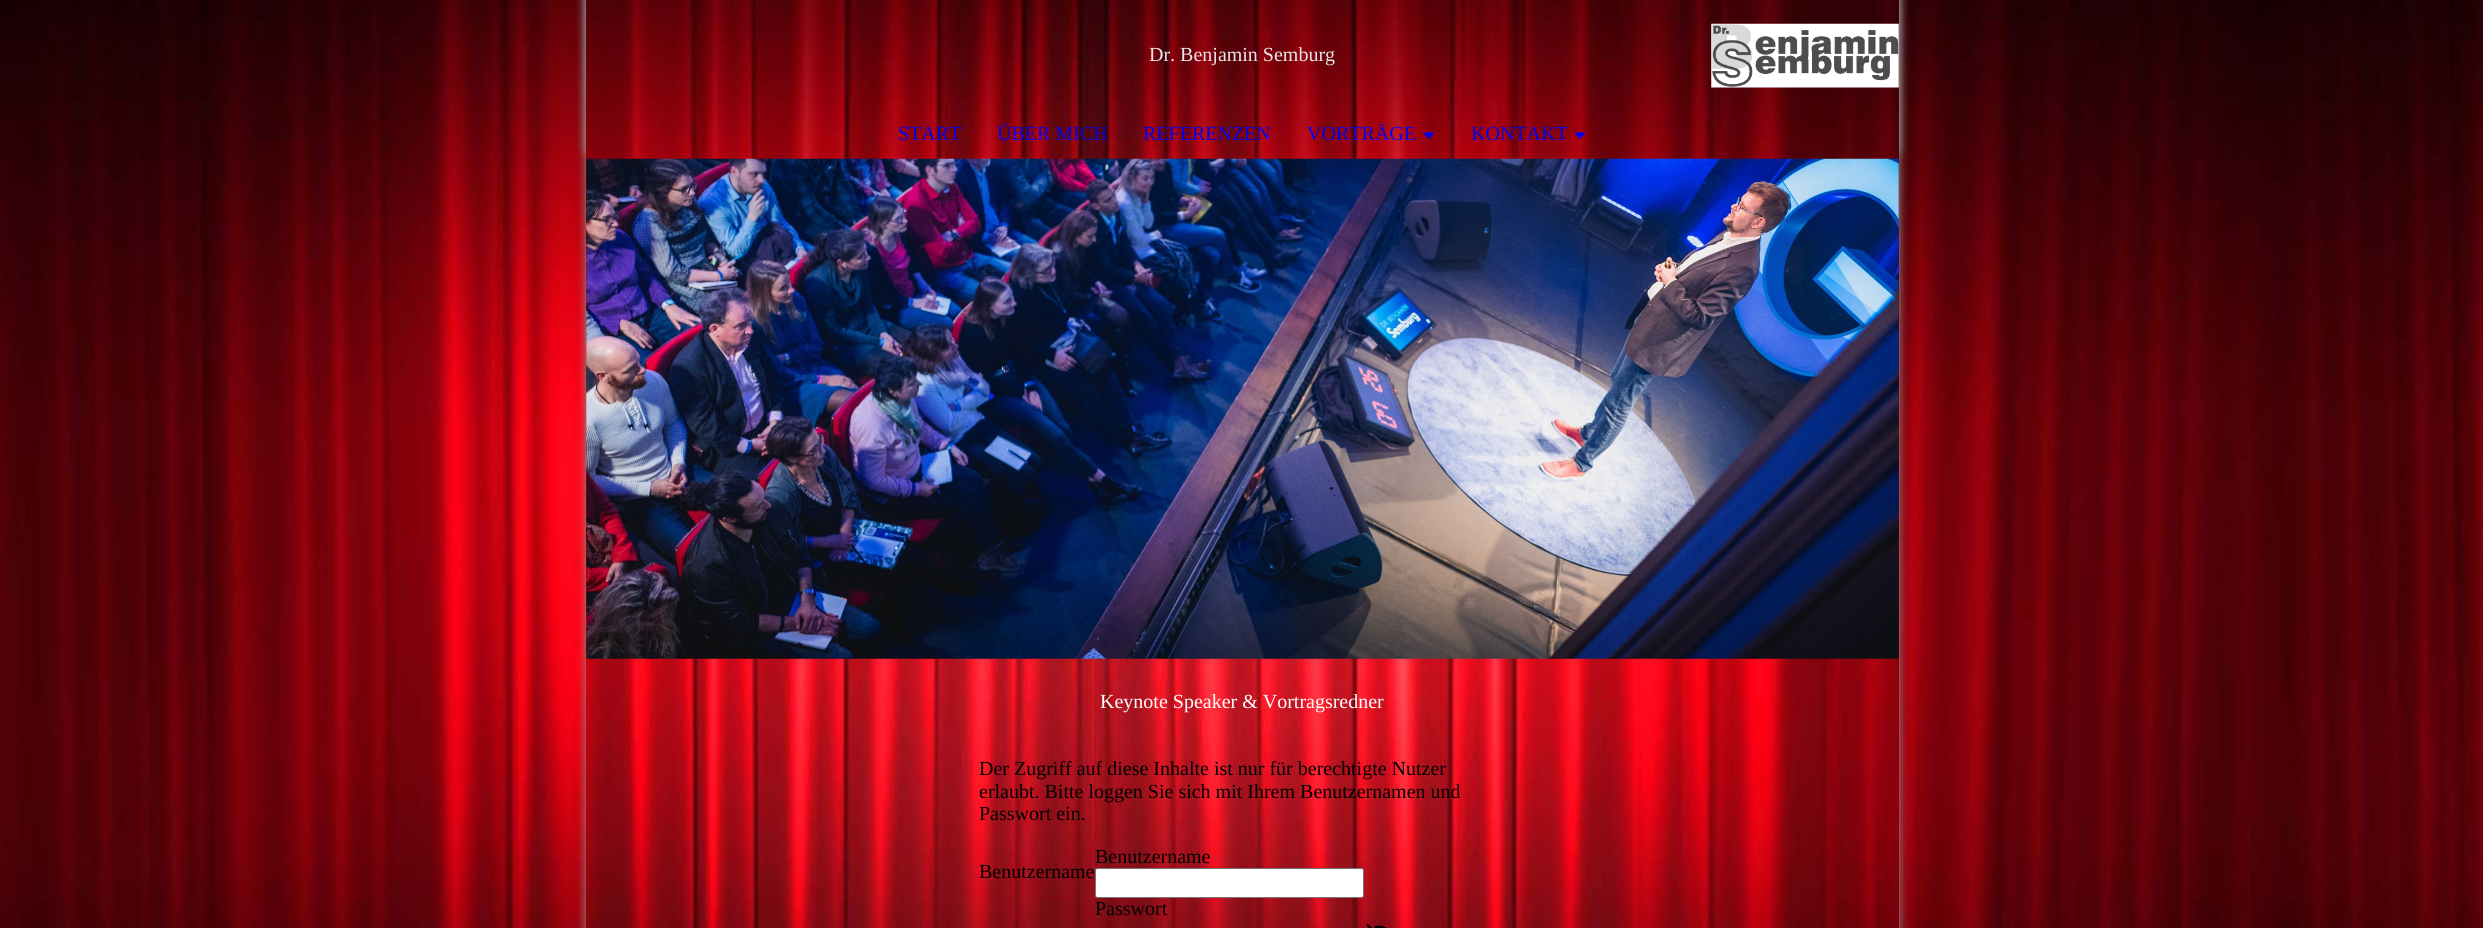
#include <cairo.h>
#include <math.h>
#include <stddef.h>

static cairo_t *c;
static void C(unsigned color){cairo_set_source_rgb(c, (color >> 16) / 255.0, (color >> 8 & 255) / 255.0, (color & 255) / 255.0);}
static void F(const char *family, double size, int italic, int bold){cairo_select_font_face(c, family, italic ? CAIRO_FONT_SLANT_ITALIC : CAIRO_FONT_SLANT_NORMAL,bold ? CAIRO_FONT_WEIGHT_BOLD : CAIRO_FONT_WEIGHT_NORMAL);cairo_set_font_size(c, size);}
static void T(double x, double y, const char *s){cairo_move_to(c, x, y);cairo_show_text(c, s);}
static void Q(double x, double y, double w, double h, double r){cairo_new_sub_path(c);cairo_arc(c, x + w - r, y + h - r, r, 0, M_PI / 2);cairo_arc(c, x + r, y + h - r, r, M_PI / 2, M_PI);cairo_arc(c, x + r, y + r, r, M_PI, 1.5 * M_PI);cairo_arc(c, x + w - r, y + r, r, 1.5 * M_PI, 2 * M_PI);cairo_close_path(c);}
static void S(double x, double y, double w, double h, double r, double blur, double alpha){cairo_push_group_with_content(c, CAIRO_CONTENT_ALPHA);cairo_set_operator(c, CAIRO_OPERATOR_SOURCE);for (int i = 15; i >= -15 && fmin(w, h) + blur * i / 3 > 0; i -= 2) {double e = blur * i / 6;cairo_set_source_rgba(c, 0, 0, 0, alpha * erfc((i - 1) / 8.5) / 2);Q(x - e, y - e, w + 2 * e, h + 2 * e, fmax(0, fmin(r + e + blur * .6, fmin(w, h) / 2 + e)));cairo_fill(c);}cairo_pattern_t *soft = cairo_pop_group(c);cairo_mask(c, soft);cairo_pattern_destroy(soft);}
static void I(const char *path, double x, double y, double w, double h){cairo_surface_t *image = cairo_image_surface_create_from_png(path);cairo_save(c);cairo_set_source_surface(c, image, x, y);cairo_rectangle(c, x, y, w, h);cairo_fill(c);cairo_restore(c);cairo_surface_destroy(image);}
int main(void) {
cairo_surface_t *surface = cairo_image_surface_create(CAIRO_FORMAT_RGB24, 2483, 928);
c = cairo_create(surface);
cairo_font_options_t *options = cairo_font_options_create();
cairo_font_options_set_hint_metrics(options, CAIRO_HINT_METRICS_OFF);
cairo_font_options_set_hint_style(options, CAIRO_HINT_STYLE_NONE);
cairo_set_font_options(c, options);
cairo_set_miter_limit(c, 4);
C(0xffffff);
cairo_paint(c);
I("1.png",0,0,2483,928);
cairo_save(c);
cairo_set_fill_rule(c,CAIRO_FILL_RULE_EVEN_ODD);
cairo_new_path(c);
cairo_move_to(c,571,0);
cairo_line_to(c,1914,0);
cairo_line_to(c,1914,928);
cairo_line_to(c,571,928);
cairo_close_path(c);
cairo_move_to(c,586,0);
cairo_line_to(c,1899,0);
cairo_line_to(c,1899,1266);
cairo_line_to(c,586,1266);
cairo_close_path(c);
cairo_clip(c);
C(0x999999);
S(586,0,1313,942,0,4.5,1);
cairo_restore(c);
I("3.png",586,158,1313,501);
cairo_save(c);
cairo_set_fill_rule(c,CAIRO_FILL_RULE_EVEN_ODD);
cairo_new_path(c);
cairo_move_to(c,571,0);
cairo_line_to(c,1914,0);
cairo_line_to(c,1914,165);
cairo_line_to(c,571,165);
cairo_close_path(c);
cairo_move_to(c,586,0);
cairo_line_to(c,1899,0);
cairo_line_to(c,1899,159);
cairo_line_to(c,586,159);
cairo_close_path(c);
cairo_clip(c);
C(0x999999);
S(586,-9,1313,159,0,4.5,1);
cairo_restore(c);
F("Liberation Serif",20,0,0);
C(0xe8e8e8);
T(1149,61,"Dr. Benjamin Semburg");
I("2.png",1711,23,188,65);
C(0x0000ee);
T(898,140,"START");
T(997,140,"ÜBER MICH");
T(1143,140,"REFERENZEN");
T(1307,140,"VORTRÄGE");
cairo_new_path(c);
cairo_move_to(c,1422.5,132.5);
cairo_line_to(c,1435,132.5);
cairo_line_to(c,1429,139);
cairo_close_path(c);
cairo_fill(c);
T(1471,140,"KONTAKT");
cairo_new_path(c);
cairo_move_to(c,1574,132.5);
cairo_line_to(c,1586,132.5);
cairo_line_to(c,1580,139);
cairo_close_path(c);
cairo_fill(c);
C(0xffffff);
T(1100,708,"Keynote Speaker & Vortragsredner");
C(0x000000);
T(979,775,"Der Zugriff auf diese Inhalte ist nur für berechtigte Nutzer");
T(979,798,"erlaubt. Bitte loggen Sie sich mit Ihrem Benutzernamen und");
T(979,820,"Passwort ein.");
T(1095,863,"Benutzername");
C(0xffffff);
Q(1095.5,868.5,268,29,2);
cairo_fill_preserve(c);
C(0x767676);
cairo_set_line_width(c,1);
cairo_stroke(c);
C(0x000000);
T(979,878,"Benutzername");
T(1095,915,"Passwort");
I("4.png",1366,923,21,5);
cairo_surface_write_to_png(surface, "o.png");
cairo_font_options_destroy(options);
cairo_destroy(c);
cairo_surface_destroy(surface);
return 0;
}
